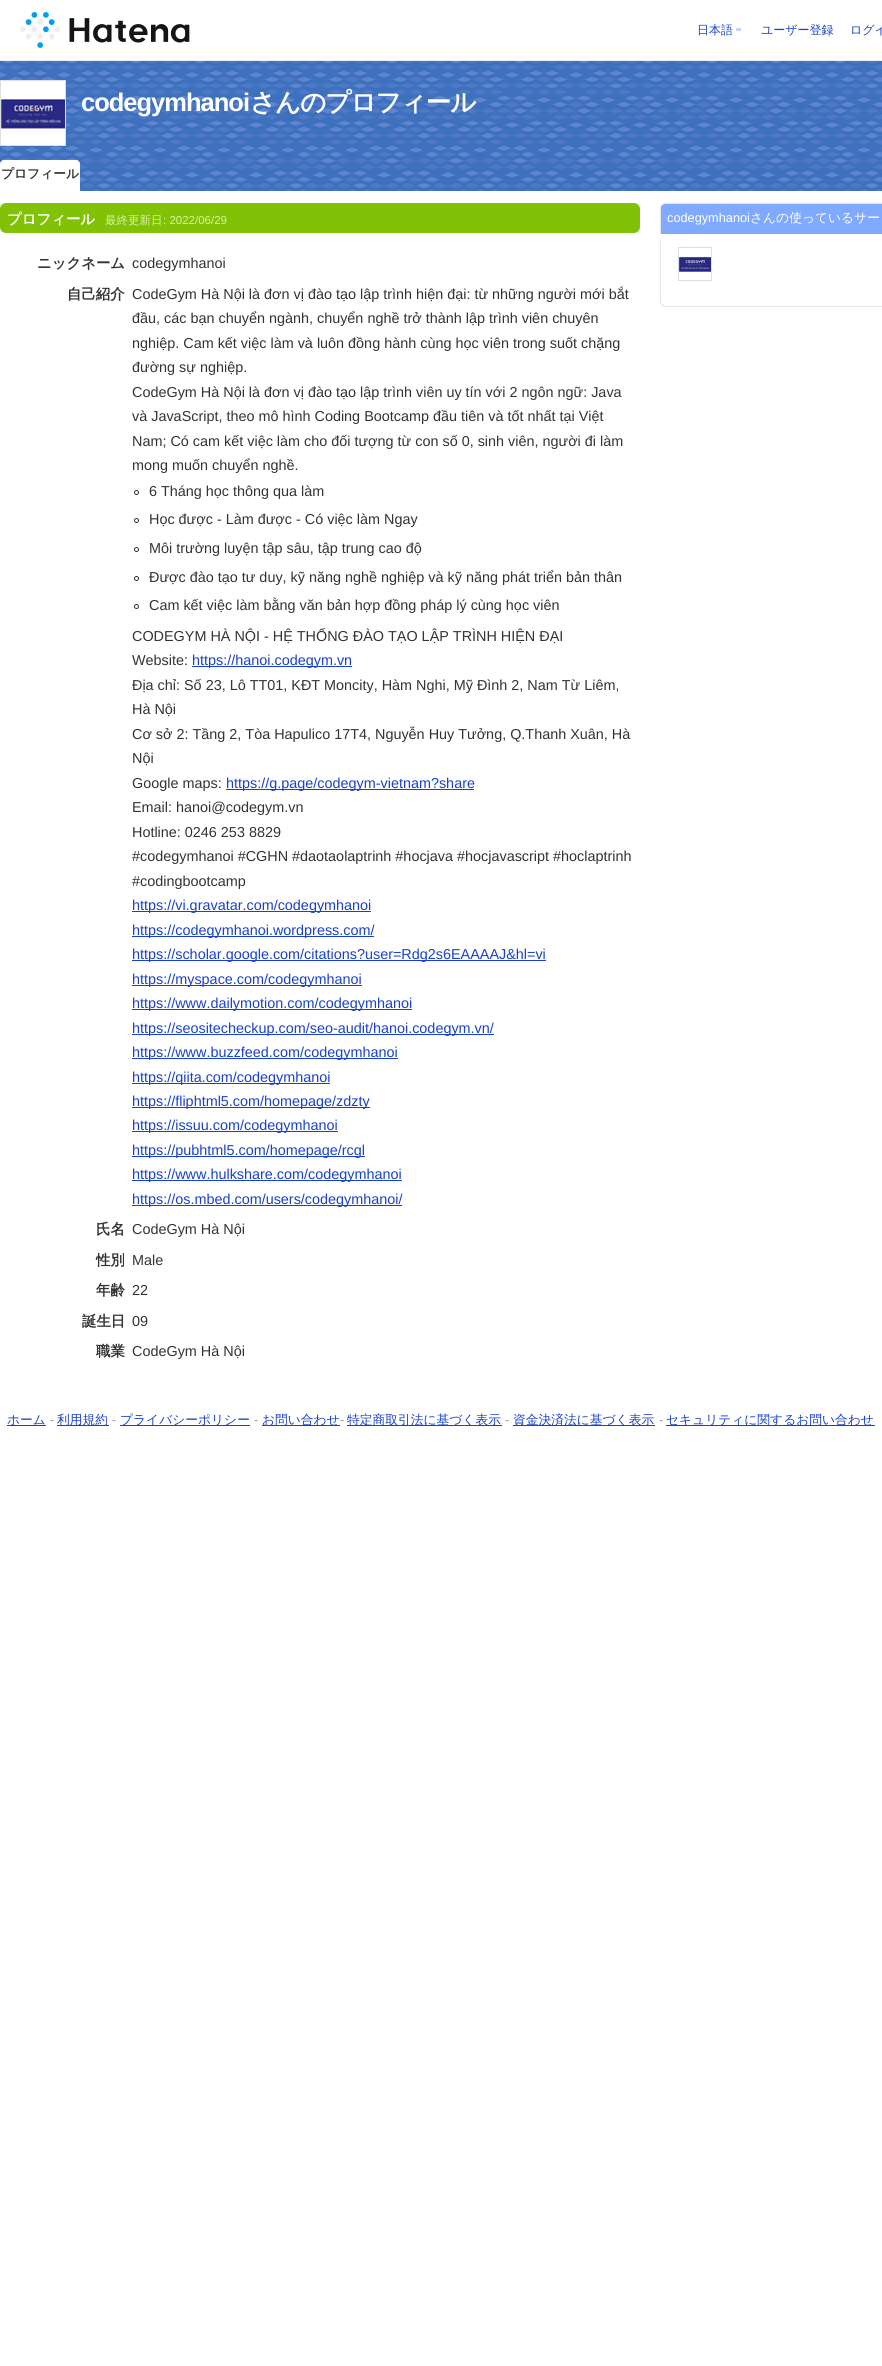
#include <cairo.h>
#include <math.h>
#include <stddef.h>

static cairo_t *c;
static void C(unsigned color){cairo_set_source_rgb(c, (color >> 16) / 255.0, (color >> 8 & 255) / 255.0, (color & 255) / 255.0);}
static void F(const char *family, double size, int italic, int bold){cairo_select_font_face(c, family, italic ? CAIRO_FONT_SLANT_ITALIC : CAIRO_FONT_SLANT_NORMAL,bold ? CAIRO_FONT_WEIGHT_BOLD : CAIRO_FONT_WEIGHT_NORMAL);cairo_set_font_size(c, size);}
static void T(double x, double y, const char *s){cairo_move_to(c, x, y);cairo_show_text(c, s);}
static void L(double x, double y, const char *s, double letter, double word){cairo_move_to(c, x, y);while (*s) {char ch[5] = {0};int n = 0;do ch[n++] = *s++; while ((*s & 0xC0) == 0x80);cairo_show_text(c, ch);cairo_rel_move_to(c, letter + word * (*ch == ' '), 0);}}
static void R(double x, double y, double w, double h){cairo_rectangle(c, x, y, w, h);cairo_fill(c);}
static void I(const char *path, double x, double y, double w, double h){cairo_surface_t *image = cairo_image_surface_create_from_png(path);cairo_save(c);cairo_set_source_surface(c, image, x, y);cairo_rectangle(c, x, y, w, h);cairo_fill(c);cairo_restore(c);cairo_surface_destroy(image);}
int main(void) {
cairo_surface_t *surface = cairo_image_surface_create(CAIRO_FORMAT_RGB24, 882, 2366);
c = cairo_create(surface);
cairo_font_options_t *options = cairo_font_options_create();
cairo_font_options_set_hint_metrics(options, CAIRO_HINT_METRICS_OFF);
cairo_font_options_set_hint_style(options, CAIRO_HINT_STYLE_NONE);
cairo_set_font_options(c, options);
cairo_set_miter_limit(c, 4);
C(0xffffff);
cairo_paint(c);
C(0xf0f0f0);
R(0,60,882,1);
I("1.png",20,12,170,36);
C(0xc6d0f3);
R(736,28,5,3);
F("WenQuanYi Zen Hei Medium",12,0,0);
C(0x1841ce);
T(697,34,"日本語");
T(761,34,"ユーザー登録");
T(850,34,"ログイ");
I("2.png",0,61,882,130);
C(0xffffff);
cairo_rectangle(c,.5,80.5,65,65);
cairo_fill_preserve(c);
C(0xdedede);
cairo_set_line_width(c,1);
cairo_stroke(c);
I("3.png",1,99,64,30);
F("Liberation Sans",25.5,0,1);
C(0xffffff);
L(81,111,"codegymhanoi",-1,0);
F("WenQuanYi Zen Hei",25.5,0,1);
L(250,111,"さんのプロフィール",-1,0);
I("4.png",0,160,80,31);
F("WenQuanYi Zen Hei",12.75,0,1);
C(0x333333);
T(1,178,"プロフィール");
I("5.png",0,203,640,30);
F("WenQuanYi Zen Hei",14.4,0,1);
C(0xffffff);
T(7,224,"プロフィール");
F("WenQuanYi Zen Hei Medium",11.5,0,0);
C(0xd9f4a6);
T(105,224,"最終更新日");
F("Liberation Sans",11.5,0,0);
T(163,224,": 2022/06/29");
F("WenQuanYi Zen Hei",14.4,0,1);
C(0x333333);
T(37,268,"ニックネーム");
F("Liberation Sans",14.4,0,0);
T(132,268,"codegymhanoi");
F("WenQuanYi Zen Hei",14.4,0,1);
T(67,299,"自己紹介");
F("Liberation Sans",14.4,0,0);
T(132,299,"CodeGym Hà Nội là đơn vị đào tạo lập trình hiện đại: từ những người mới bắt");
T(132,323,"đầu, các bạn chuyển ngành, chuyển nghề trở thành lập trình viên chuyên");
T(132,348,"nghiệp. Cam kết việc làm và luôn đồng hành cùng học viên trong suốt chặng");
T(132,372,"đường sự nghiệp.");
T(132,397,"CodeGym Hà Nội là đơn vị đào tạo lập trình viên uy tín với 2 ngôn ngữ: Java");
T(132,421,"và JavaScript, theo mô hình Coding Bootcamp đầu tiên và tốt nhất tại Việt");
T(132,446,"Nam; Có cam kết việc làm cho đối tượng từ con số 0, sinh viên, người đi làm");
T(132,470,"mong muốn chuyển nghề.");
cairo_new_path(c);
cairo_arc(c,136.5,492.5,2,0,2 * M_PI);
cairo_stroke(c);
T(149,496,"6 Tháng học thông qua làm");
cairo_new_path(c);
cairo_arc(c,136.5,520.5,2,0,2 * M_PI);
cairo_stroke(c);
T(149,524,"Học được - Làm được - Có việc làm Ngay");
cairo_new_path(c);
cairo_arc(c,136.5,549.5,2,0,2 * M_PI);
cairo_stroke(c);
T(149,553,"Môi trường luyện tập sâu, tập trung cao độ");
cairo_new_path(c);
cairo_arc(c,136.5,578.5,2,0,2 * M_PI);
cairo_stroke(c);
T(149,582,"Được đào tạo tư duy, kỹ năng nghề nghiệp và kỹ năng phát triển bản thân");
cairo_new_path(c);
cairo_arc(c,136.5,606.5,2,0,2 * M_PI);
cairo_stroke(c);
T(149,610,"Cam kết việc làm bằng văn bản hợp đồng pháp lý cùng học viên");
T(132,641,"CODEGYM HÀ NỘI - HỆ THỐNG ĐÀO TẠO LẬP TRÌNH HIỆN ĐẠI");
T(132,665,"Website:");
C(0x1841ce);
R(192,666,160,1);
T(192,665,"https://hanoi.codegym.vn");
C(0x333333);
T(132,690,"Địa chỉ: Số 23, Lô TT01, KĐT Moncity, Hàm Nghi, Mỹ Đình 2, Nam Từ Liêm,");
T(132,714,"Hà Nội");
T(132,739,"Cơ sở 2: Tầng 2, Tòa Hapulico 17T4, Nguyễn Huy Tưởng, Q.Thanh Xuân, Hà");
T(132,763,"Nội");
T(132,788,"Google maps:");
C(0x1841ce);
R(226,789,248,1);
T(226,788,"https://g.page/codegym-vietnam?share");
C(0x333333);
T(132,812,"Email: hanoi@codegym.vn");
T(132,837,"Hotline: 0246 253 8829");
T(132,861,"#codegymhanoi #CGHN #daotaolaptrinh #hocjava #hocjavascript #hoclaptrinh");
T(132,886,"#codingbootcamp");
C(0x1841ce);
R(132,911,239,1);
T(132,910,"https://vi.gravatar.com/codegymhanoi");
R(132,936,242,1);
T(132,935,"https://codegymhanoi.wordpress.com/");
R(132,960,414,1);
T(132,959,"https://scholar.google.com/citations?user=Rdg2s6EAAAAJ&hl=vi");
R(132,985,230,1);
T(132,984,"https://myspace.com/codegymhanoi");
R(132,1009,280,1);
T(132,1008,"https://www.dailymotion.com/codegymhanoi");
R(132,1034,362,1);
T(132,1033,"https://seositecheckup.com/seo-audit/hanoi.codegym.vn/");
R(132,1058,266,1);
T(132,1057,"https://www.buzzfeed.com/codegymhanoi");
R(132,1083,198,1);
T(132,1082,"https://qiita.com/codegymhanoi");
R(132,1107,238,1);
T(132,1106,"https://fliphtml5.com/homepage/zdzty");
R(132,1131,206,1);
T(132,1130,"https://issuu.com/codegymhanoi");
R(132,1156,233,1);
T(132,1155,"https://pubhtml5.com/homepage/rcgl");
R(132,1180,270,1);
T(132,1179,"https://www.hulkshare.com/codegymhanoi");
R(132,1205,270,1);
T(132,1204,"https://os.mbed.com/users/codegymhanoi/");
F("WenQuanYi Zen Hei",14.4,0,1);
C(0x333333);
T(96,1234,"氏名");
F("Liberation Sans",14.4,0,0);
T(132,1234,"CodeGym Hà Nội");
F("WenQuanYi Zen Hei",14.4,0,1);
T(96,1265,"性別");
F("Liberation Sans",14.4,0,0);
T(132,1265,"Male");
F("WenQuanYi Zen Hei",14.4,0,1);
T(96,1295,"年齢");
F("Liberation Sans",14.4,0,0);
T(132,1295,"22");
F("WenQuanYi Zen Hei",14.4,0,1);
T(82,1326,"誕生日");
F("Liberation Sans",14.4,0,0);
T(132,1326,"09");
F("WenQuanYi Zen Hei",14.4,0,1);
T(96,1356,"職業");
F("Liberation Sans",14.4,0,0);
T(132,1356,"CodeGym Hà Nội");
I("6.png",660,297,222,10);
I("7.png",660,203,222,31);
F("Liberation Sans",12.75,0,0);
C(0xffffff);
T(667,222,"codegymhanoi");
F("WenQuanYi Zen Hei Medium",12.75,0,0);
T(750,222,"さんの使っているサー");
C(0xe7e7e7);
R(660,239,1,58);
cairo_rectangle(c,678.5,247.5,33,33);
C(0xdedede);
cairo_stroke(c);
I("8.png",679,257,32,15);
C(0x1841ce);
R(7,1425,39,1);
T(7,1424,"ホーム");
F("Liberation Sans",12.75,0,0);
C(0x999999);
T(50,1424,"-");
C(0x1841ce);
R(57,1425,52,1);
F("WenQuanYi Zen Hei Medium",12.75,0,0);
T(57,1424,"利用規約");
F("Liberation Sans",12.75,0,0);
C(0x999999);
T(112,1424,"-");
C(0x1841ce);
R(120,1425,130,1);
F("WenQuanYi Zen Hei Medium",12.75,0,0);
T(120,1424,"プライバシーポリシー");
F("Liberation Sans",12.75,0,0);
C(0x999999);
T(254,1424,"-");
C(0x1841ce);
R(262,1425,78,1);
F("WenQuanYi Zen Hei Medium",12.75,0,0);
T(262,1424,"お問い合わせ");
F("Liberation Sans",12.75,0,0);
C(0x999999);
T(340,1424,"-");
C(0x1841ce);
R(347,1425,155,1);
F("WenQuanYi Zen Hei Medium",12.75,0,0);
T(347,1424,"特定商取引法に基づく表示");
F("Liberation Sans",12.75,0,0);
C(0x999999);
T(505,1424,"-");
C(0x1841ce);
R(513,1425,142,1);
F("WenQuanYi Zen Hei Medium",12.75,0,0);
T(513,1424,"資金決済法に基づく表示");
F("Liberation Sans",12.75,0,0);
C(0x999999);
T(659,1424,"-");
C(0x1841ce);
R(666,1425,209,1);
F("WenQuanYi Zen Hei Medium",12.75,0,0);
T(666,1424,"セキュリティに関するお問い合わせ");
cairo_surface_write_to_png(surface, "o.png");
cairo_font_options_destroy(options);
cairo_destroy(c);
cairo_surface_destroy(surface);
return 0;
}
